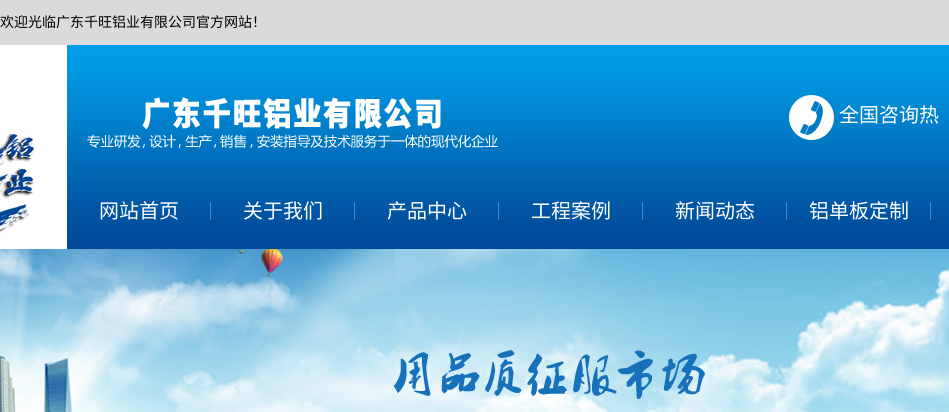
#include <cairo.h>
#include <math.h>
#include <stddef.h>

static cairo_t *c;
static void C(unsigned color){cairo_set_source_rgb(c, (color >> 16) / 255.0, (color >> 8 & 255) / 255.0, (color & 255) / 255.0);}
static void F(const char *family, double size, int italic, int bold){cairo_select_font_face(c, family, italic ? CAIRO_FONT_SLANT_ITALIC : CAIRO_FONT_SLANT_NORMAL,bold ? CAIRO_FONT_WEIGHT_BOLD : CAIRO_FONT_WEIGHT_NORMAL);cairo_set_font_size(c, size);}
static void T(double x, double y, const char *s){cairo_move_to(c, x, y);cairo_show_text(c, s);}
static void I(const char *path, double x, double y, double w, double h){cairo_surface_t *image = cairo_image_surface_create_from_png(path);cairo_save(c);cairo_set_source_surface(c, image, x, y);cairo_rectangle(c, x, y, w, h);cairo_fill(c);cairo_restore(c);cairo_surface_destroy(image);}
int main(void) {
cairo_surface_t *surface = cairo_image_surface_create(CAIRO_FORMAT_RGB24, 949, 412);
c = cairo_create(surface);
cairo_font_options_t *options = cairo_font_options_create();
cairo_font_options_set_hint_metrics(options, CAIRO_HINT_METRICS_OFF);
cairo_font_options_set_hint_style(options, CAIRO_HINT_STYLE_NONE);
cairo_set_font_options(c, options);
cairo_set_miter_limit(c, 4);
C(0xdbdbdb);
cairo_paint(c);
F("Noto Sans CJK SC",14,0,0);
C(0x000000);
T(0,27,"欢迎光临广东千旺铝业有限公司官方网站！");
I("1.png",67,45,882,204);
I("2.png",0,45,67,204);
I("3.png",87,97,411,51);
I("4.png",789,95,45,45);
F("Noto Sans CJK SC",20,0,0);
C(0xffffff);
T(839,122,"全国咨询热");
I("5.png",209,202,2,18);
T(99,218,"网站首页");
I("5.png",353,202,2,18);
T(243,218,"关于我们");
I("5.png",497,202,2,18);
T(387,218,"产品中心");
I("5.png",641,202,2,18);
T(531,218,"工程案例");
I("5.png",785,202,2,18);
T(675,218,"新闻动态");
I("5.png",929,202,2,18);
T(809,218,"铝单板定制");
I("6.png",0,249,949,163);
cairo_surface_write_to_png(surface, "o.png");
cairo_font_options_destroy(options);
cairo_destroy(c);
cairo_surface_destroy(surface);
return 0;
}
